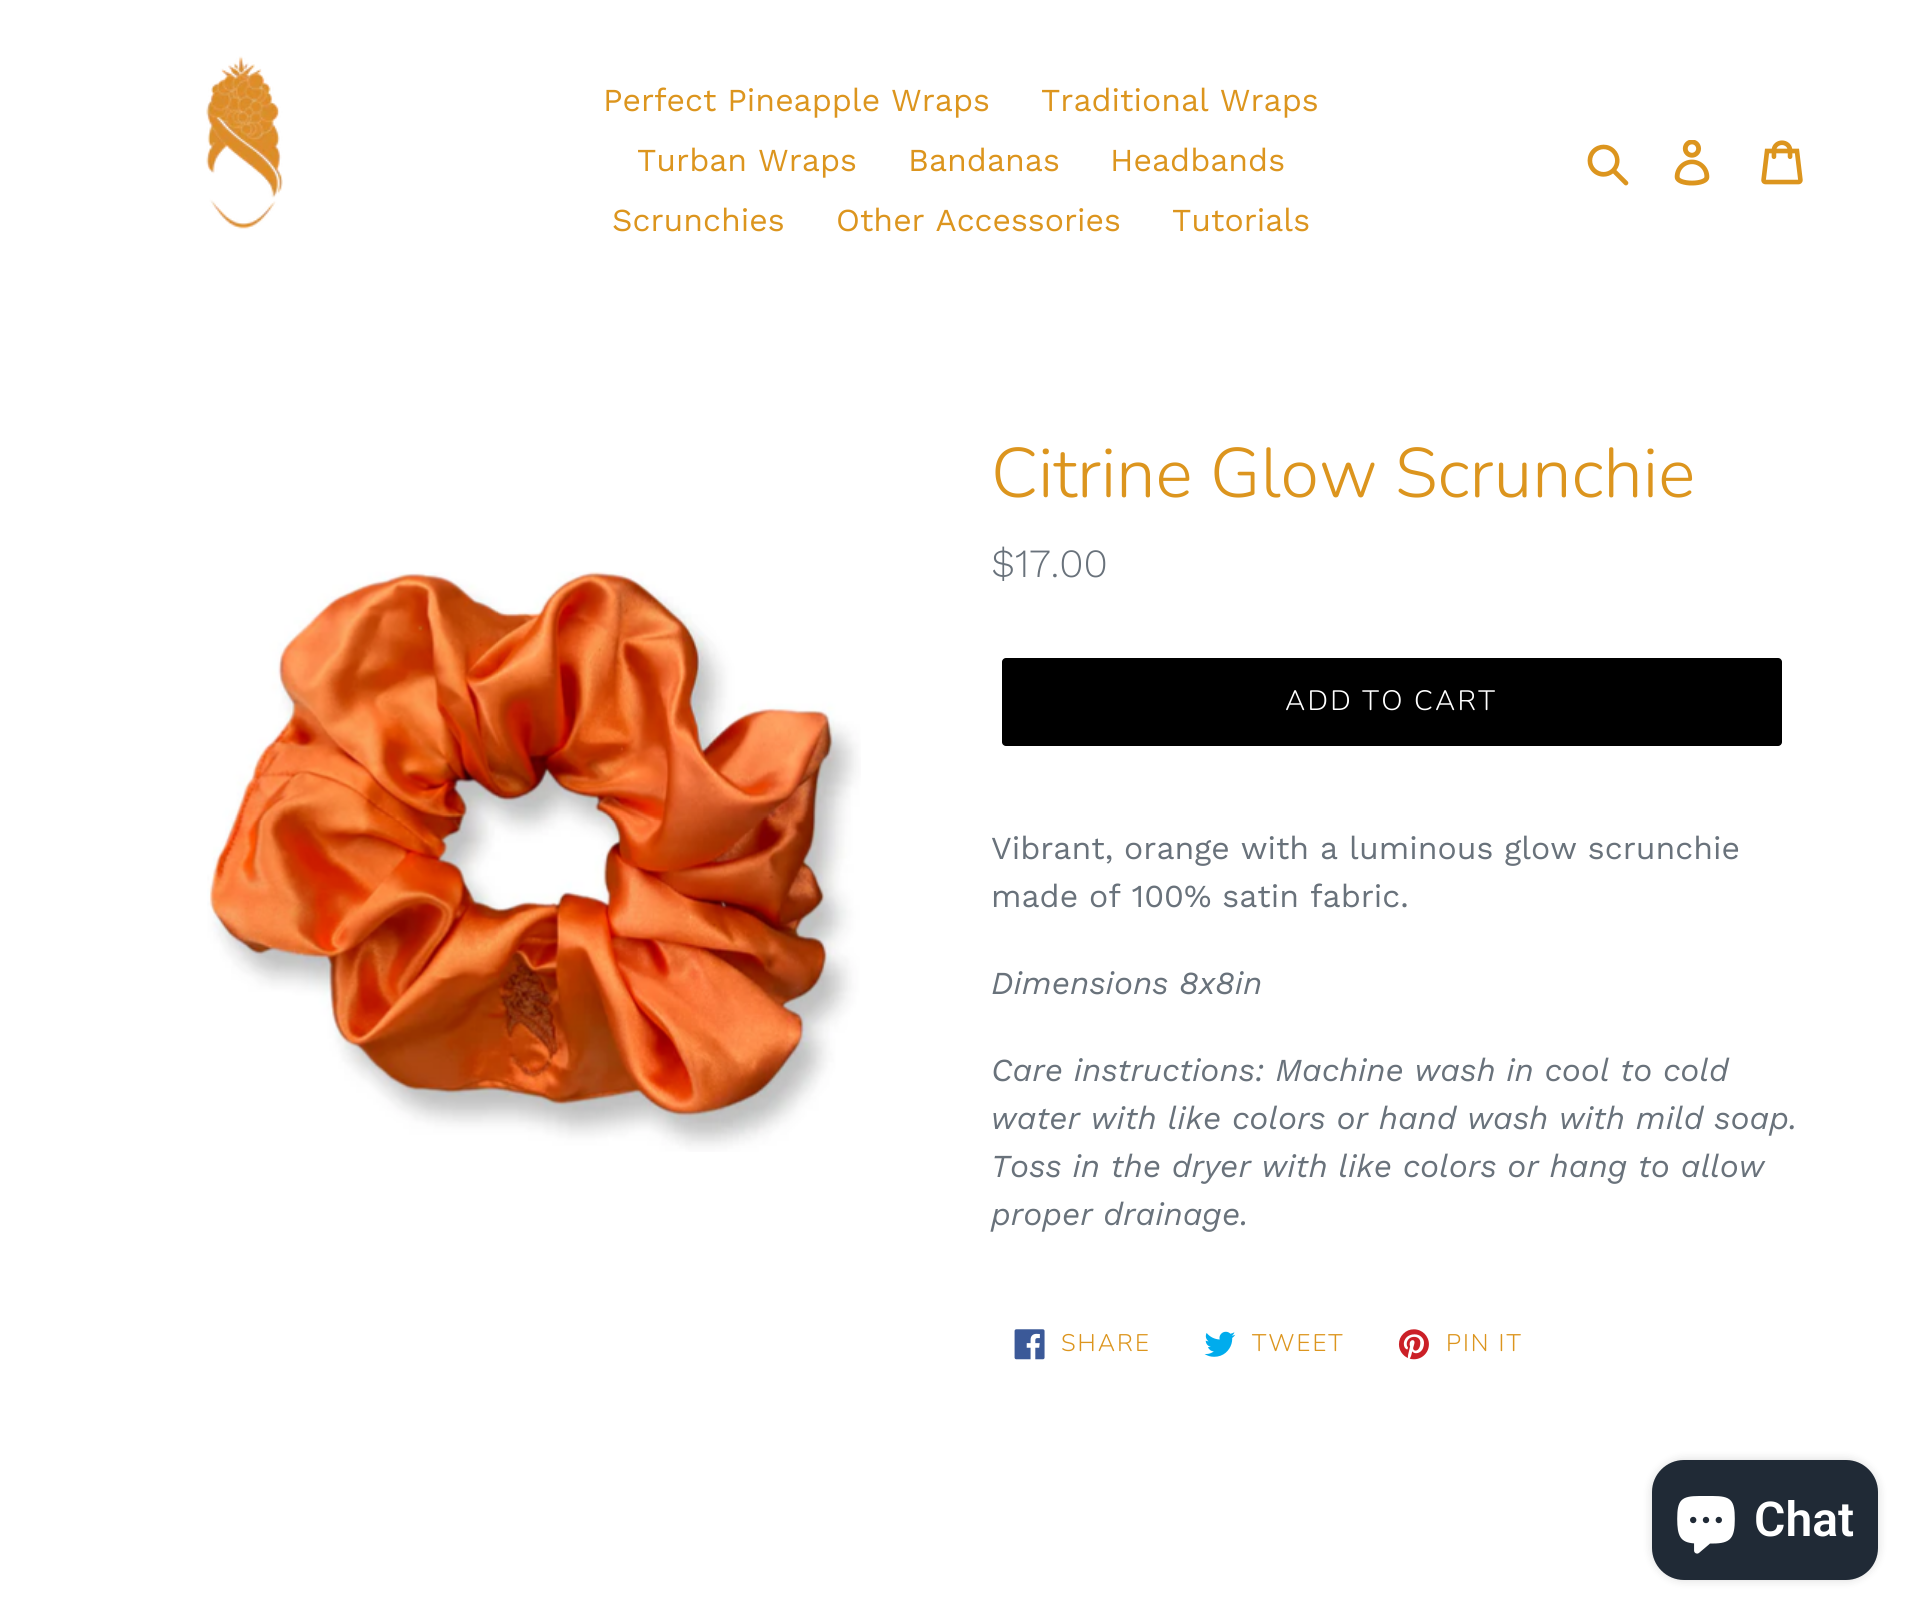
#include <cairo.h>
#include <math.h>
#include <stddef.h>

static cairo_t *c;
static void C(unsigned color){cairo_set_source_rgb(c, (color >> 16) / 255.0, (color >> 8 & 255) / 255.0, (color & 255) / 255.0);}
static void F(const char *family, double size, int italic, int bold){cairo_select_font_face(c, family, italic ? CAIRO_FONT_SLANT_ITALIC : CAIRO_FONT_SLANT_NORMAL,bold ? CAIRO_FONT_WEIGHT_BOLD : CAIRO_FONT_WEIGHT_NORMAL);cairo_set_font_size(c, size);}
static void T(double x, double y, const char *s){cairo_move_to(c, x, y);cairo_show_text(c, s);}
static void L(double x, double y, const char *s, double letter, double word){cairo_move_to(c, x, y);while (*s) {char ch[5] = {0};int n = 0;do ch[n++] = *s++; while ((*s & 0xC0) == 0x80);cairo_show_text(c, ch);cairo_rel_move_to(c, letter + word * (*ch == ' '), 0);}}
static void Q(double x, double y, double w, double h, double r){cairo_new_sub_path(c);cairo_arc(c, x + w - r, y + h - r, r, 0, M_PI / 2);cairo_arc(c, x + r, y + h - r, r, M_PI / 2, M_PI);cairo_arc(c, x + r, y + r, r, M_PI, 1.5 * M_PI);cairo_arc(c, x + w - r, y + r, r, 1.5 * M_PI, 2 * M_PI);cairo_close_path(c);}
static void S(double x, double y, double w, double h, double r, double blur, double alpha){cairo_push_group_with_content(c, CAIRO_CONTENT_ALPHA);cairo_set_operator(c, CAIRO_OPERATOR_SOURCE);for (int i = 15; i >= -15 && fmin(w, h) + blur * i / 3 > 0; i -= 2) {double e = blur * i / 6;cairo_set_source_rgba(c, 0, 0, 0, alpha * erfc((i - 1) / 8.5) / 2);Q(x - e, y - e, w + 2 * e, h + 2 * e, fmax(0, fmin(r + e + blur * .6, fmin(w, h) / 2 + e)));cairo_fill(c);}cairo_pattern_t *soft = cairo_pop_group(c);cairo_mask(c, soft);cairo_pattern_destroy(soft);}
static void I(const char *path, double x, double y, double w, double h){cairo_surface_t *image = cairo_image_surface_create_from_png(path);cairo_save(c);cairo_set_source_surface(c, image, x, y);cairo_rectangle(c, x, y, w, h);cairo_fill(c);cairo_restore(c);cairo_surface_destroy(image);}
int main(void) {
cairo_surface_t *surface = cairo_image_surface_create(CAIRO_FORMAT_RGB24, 1921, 1621);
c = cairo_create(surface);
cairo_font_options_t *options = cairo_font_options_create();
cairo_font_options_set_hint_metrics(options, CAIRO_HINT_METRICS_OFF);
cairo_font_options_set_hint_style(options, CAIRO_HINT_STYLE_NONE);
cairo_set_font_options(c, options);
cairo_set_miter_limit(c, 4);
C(0xffffff);
cairo_paint(c);
I("1.png",206,56,77,173);
F("Work Sans",32,0,0);
C(0xdc951e);
T(603,111,"Perfect Pineapple Wraps");
T(1041,111,"Traditional Wraps");
T(637,171,"Turban Wraps");
T(908,171,"Bandanas");
T(1110,171,"Headbands");
T(612,231,"Scrunchies");
T(836,231,"Other Accessories");
T(1172,231,"Tutorials");
I("2.png",1587,144,42,42);
I("3.png",1674,140,36,46);
I("4.png",1761,140,42,45);
I("5.png",207,571,654,581);
F("Nunito Light",70,0,0);
T(991,497,"Citrine Glow Scrunchie");
F("Work Sans Light",40,0,0);
C(0x69727b);
T(991,577,"$17.00");
C(0x000000);
Q(1002,658,780,88,4);
cairo_fill(c);
F("Nunito Light",28,0,0);
C(0xffffff);
L(1285,710,"ADD TO CART",2.25,0);
F("Work Sans",32,0,0);
C(0x69727b);
T(991,859,"Vibrant, orange with a luminous glow scrunchie");
T(991,907,"made of 100% satin fabric.");
F("Work Sans",32,1,0);
T(991,994,"Dimensions 8x8in");
T(991,1081,"Care instructions: Machine wash in cool to cold");
T(991,1129,"water with like colors or hand wash with mild soap.");
T(991,1177,"Toss in the dryer with like colors or hang to allow");
T(991,1225,"proper drainage.");
I("6.png",1014,1329,31,31);
F("Nunito Light",24,0,0);
C(0xdc951e);
L(1061,1351,"SHARE",2,0);
I("7.png",1204,1331,32,26);
L(1252,1351,"TWEET",2,0);
I("8.png",1398,1329,31,31);
L(1446,1351,"PIN IT",2,0);
C(0x000000);
S(1652,1460,226,120,32,5,.15);
C(0x202a36);
Q(1652,1460,226,120,32);
cairo_fill(c);
I("9.png",1677,1496,58,58);
F("Roboto SemiBold",48,0,0);
C(0xffffff);
T(1754,1536,"Chat");
cairo_surface_write_to_png(surface, "o.png");
cairo_font_options_destroy(options);
cairo_destroy(c);
cairo_surface_destroy(surface);
return 0;
}
